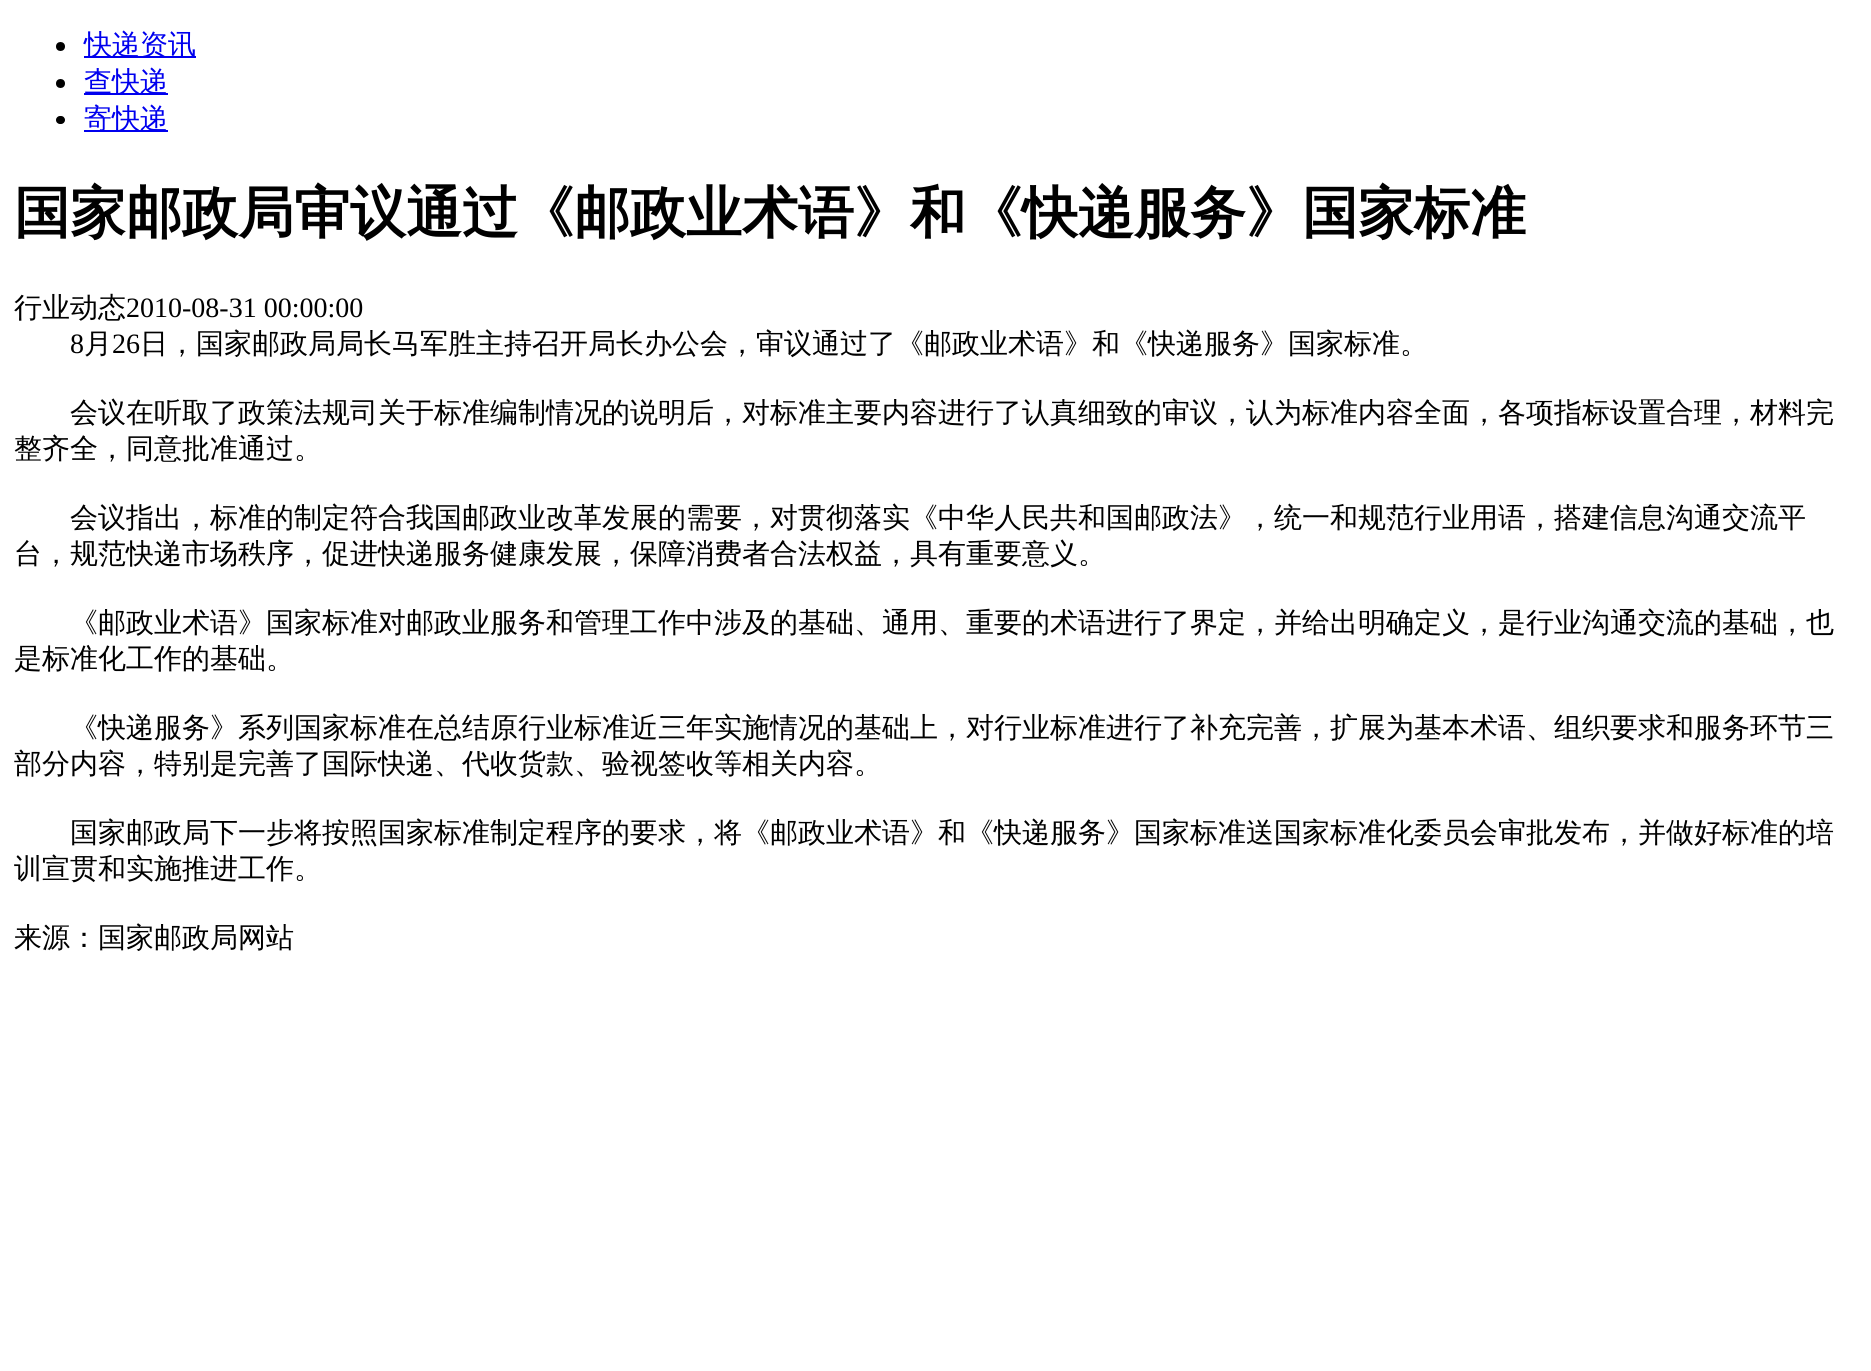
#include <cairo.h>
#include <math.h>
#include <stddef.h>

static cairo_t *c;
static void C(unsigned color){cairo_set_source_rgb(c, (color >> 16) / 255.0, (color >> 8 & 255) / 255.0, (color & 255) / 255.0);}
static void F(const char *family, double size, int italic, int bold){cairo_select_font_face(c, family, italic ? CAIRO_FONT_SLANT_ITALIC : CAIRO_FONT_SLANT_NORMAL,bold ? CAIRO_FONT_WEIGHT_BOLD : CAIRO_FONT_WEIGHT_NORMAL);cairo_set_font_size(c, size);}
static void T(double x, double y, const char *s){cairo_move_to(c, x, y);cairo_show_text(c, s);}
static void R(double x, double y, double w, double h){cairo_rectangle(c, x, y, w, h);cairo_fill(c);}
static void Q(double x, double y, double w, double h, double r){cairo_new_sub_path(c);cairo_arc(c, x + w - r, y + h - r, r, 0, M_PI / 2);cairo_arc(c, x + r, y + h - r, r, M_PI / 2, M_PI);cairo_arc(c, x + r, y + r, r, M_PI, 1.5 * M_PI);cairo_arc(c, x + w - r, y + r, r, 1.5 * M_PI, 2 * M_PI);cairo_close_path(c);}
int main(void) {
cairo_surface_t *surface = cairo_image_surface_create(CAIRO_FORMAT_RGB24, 1871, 1371);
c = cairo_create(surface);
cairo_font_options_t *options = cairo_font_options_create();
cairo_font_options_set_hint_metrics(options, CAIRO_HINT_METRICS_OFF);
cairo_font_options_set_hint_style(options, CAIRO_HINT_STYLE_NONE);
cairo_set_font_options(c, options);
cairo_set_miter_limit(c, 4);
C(0xffffff);
cairo_paint(c);
C(0x000000);
cairo_arc(c,60.5,46.5,4.5,0,2 * M_PI);
cairo_fill(c);
C(0x0000ee);
R(84,56,112,2);
F("WenQuanYi Zen Hei Medium",28,0,0);
T(84,54,"快递资讯");
C(0x000000);
cairo_new_path(c);
cairo_arc(c,60.5,83.5,4.5,0,2 * M_PI);
cairo_fill(c);
C(0x0000ee);
R(84,93,84,2);
T(84,91,"查快递");
C(0x000000);
Q(56,116,9,8,4);
cairo_fill(c);
C(0x0000ee);
R(84,130,84,2);
T(84,128,"寄快递");
F("WenQuanYi Zen Hei",56,0,1);
C(0x000000);
T(14,232,"国家邮政局审议通过《邮政业术语》和《快递服务》国家标准");
F("WenQuanYi Zen Hei Medium",28,0,0);
T(14,317,"行业动态");
F("Liberation Serif",28,0,0);
T(126,317,"2010-08-31 00:00:00");
T(70,353,"8");
F("WenQuanYi Zen Hei Medium",28,0,0);
T(84,353,"月");
F("Liberation Serif",28,0,0);
T(112,353,"26");
F("WenQuanYi Zen Hei Medium",28,0,0);
T(140,353,"日，国家邮政局局长马军胜主持召开局长办公会，审议通过了《邮政业术语》和《快递服务》国家标准。");
T(70,422,"会议在听取了政策法规司关于标准编制情况的说明后，对标准主要内容进行了认真细致的审议，认为标准内容全面，各项指标设置合理，材料完");
T(14,458,"整齐全，同意批准通过。");
T(70,527,"会议指出，标准的制定符合我国邮政业改革发展的需要，对贯彻落实《中华人民共和国邮政法》，统一和规范行业用语，搭建信息沟通交流平");
T(14,563,"台，规范快递市场秩序，促进快递服务健康发展，保障消费者合法权益，具有重要意义。");
T(70,632,"《邮政业术语》国家标准对邮政业服务和管理工作中涉及的基础、通用、重要的术语进行了界定，并给出明确定义，是行业沟通交流的基础，也");
T(14,668,"是标准化工作的基础。");
T(70,737,"《快递服务》系列国家标准在总结原行业标准近三年实施情况的基础上，对行业标准进行了补充完善，扩展为基本术语、组织要求和服务环节三");
T(14,773,"部分内容，特别是完善了国际快递、代收货款、验视签收等相关内容。");
T(70,842,"国家邮政局下一步将按照国家标准制定程序的要求，将《邮政业术语》和《快递服务》国家标准送国家标准化委员会审批发布，并做好标准的培");
T(14,878,"训宣贯和实施推进工作。");
T(14,947,"来源：国家邮政局网站");
cairo_surface_write_to_png(surface, "o.png");
cairo_font_options_destroy(options);
cairo_destroy(c);
cairo_surface_destroy(surface);
return 0;
}
